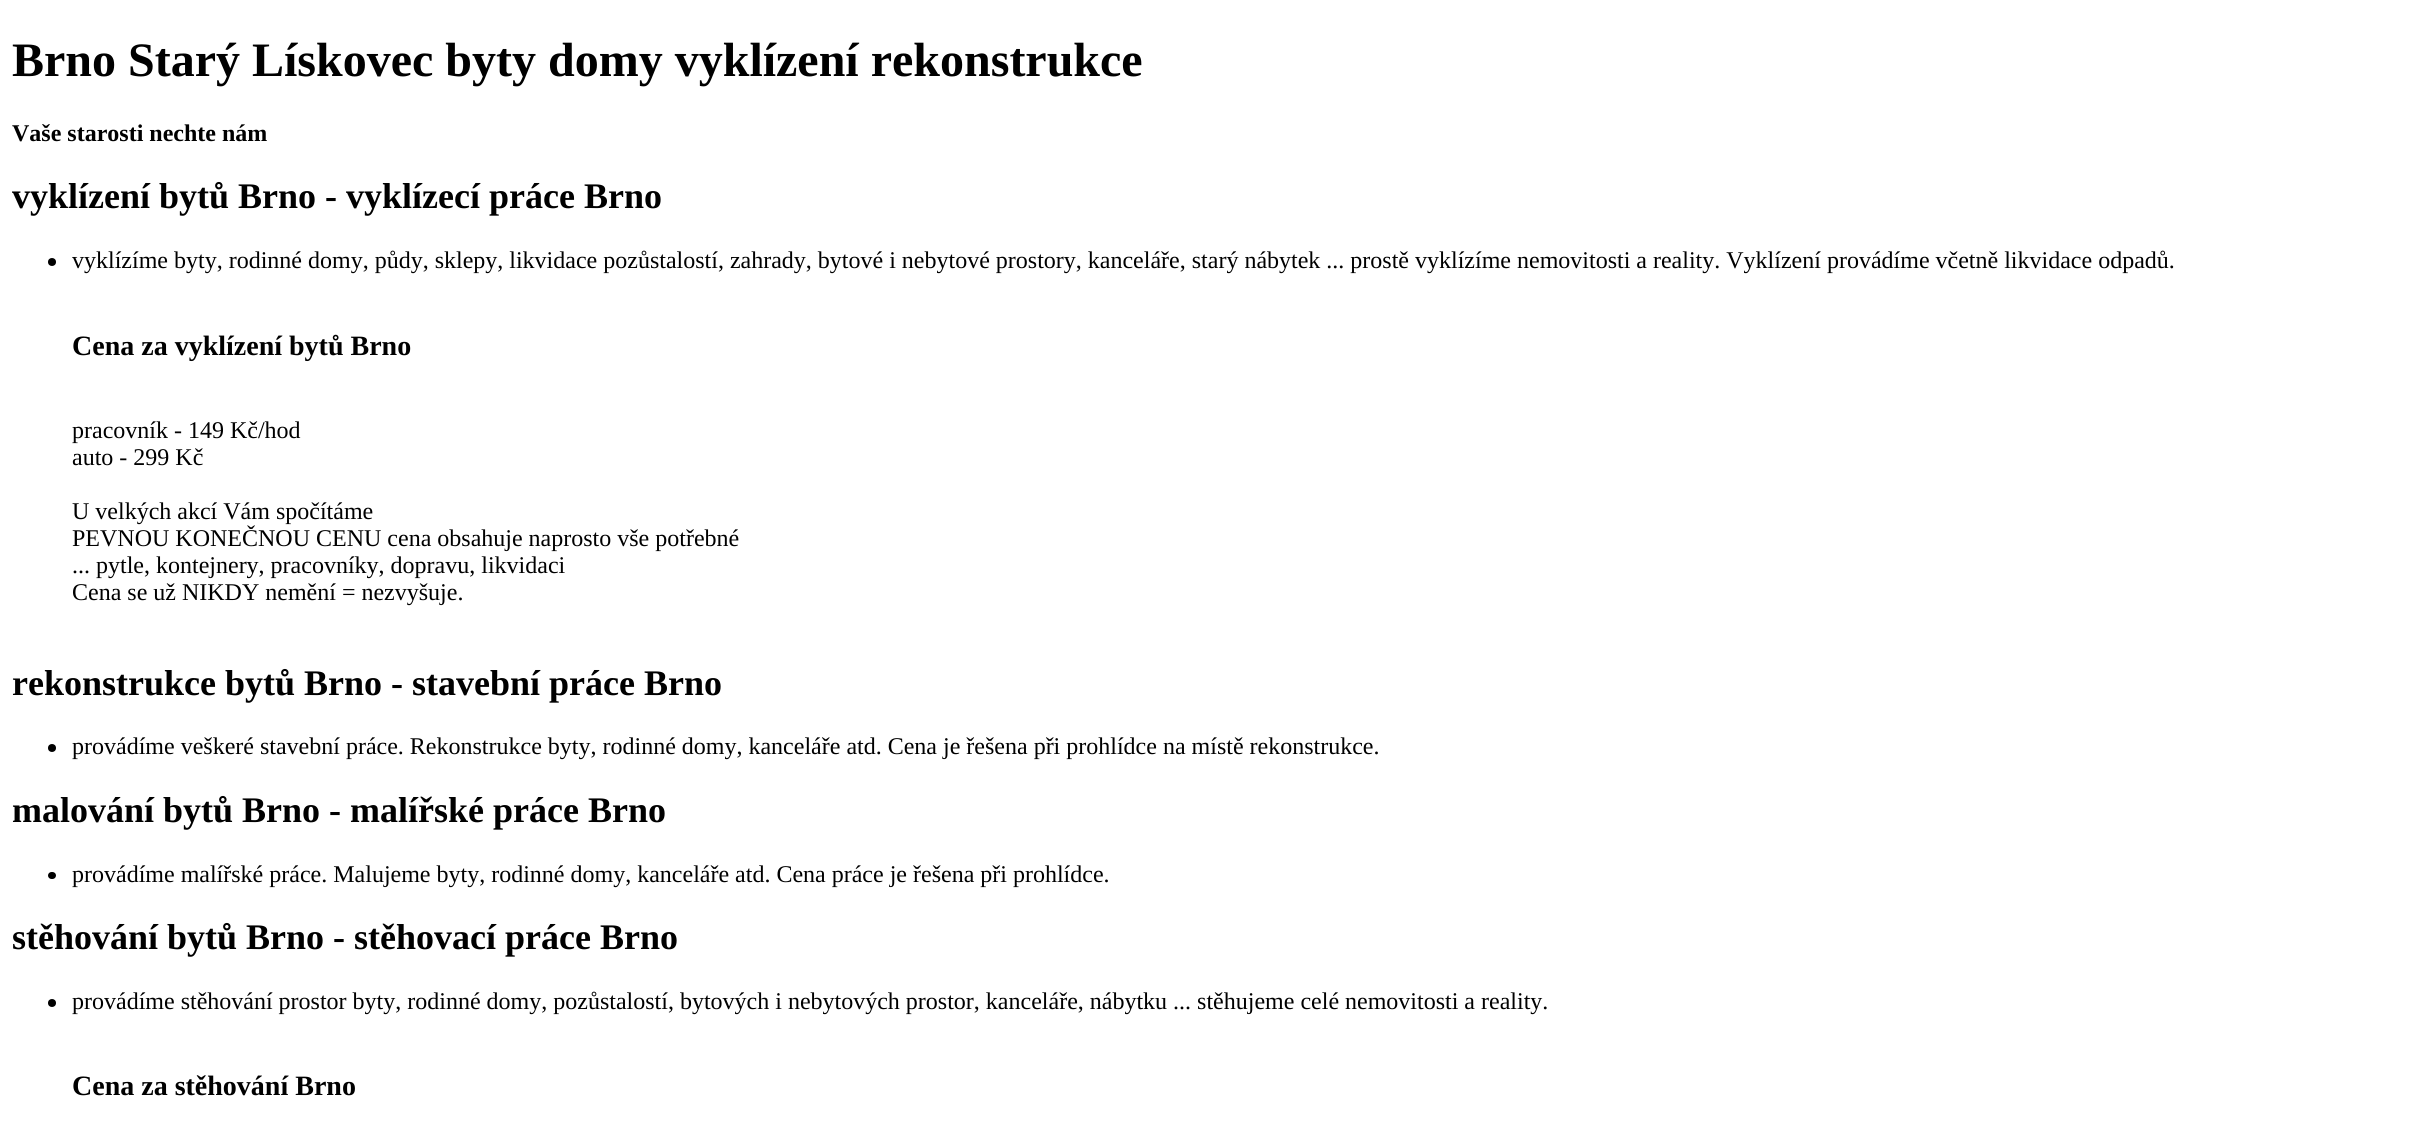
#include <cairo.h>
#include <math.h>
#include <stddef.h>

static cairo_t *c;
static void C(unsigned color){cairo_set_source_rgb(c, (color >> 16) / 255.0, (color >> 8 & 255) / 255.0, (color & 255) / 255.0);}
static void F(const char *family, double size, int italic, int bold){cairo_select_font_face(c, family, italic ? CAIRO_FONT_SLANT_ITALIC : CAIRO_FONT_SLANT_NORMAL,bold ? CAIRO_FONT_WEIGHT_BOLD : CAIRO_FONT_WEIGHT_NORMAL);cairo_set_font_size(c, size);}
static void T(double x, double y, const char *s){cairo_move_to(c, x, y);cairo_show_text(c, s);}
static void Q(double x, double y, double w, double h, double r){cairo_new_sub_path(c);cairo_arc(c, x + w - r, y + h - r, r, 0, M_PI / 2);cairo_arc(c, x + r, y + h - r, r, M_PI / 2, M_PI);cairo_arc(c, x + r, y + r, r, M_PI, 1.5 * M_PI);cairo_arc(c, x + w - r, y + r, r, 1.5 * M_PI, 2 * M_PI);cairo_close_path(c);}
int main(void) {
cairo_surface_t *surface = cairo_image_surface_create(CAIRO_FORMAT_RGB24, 2420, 1144);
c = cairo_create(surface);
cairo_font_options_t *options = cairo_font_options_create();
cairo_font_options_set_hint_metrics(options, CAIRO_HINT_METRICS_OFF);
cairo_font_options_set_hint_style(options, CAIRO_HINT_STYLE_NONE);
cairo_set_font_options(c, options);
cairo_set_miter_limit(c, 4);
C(0xffffff);
cairo_paint(c);
F("Liberation Serif",48,0,1);
C(0x000000);
T(12,76,"Brno Starý Lískovec byty domy vyklízení rekonstrukce");
F("Liberation Serif",24,0,1);
T(12,141,"Vaše starosti nechte nám");
F("Liberation Serif",36,0,1);
T(12,208,"vyklízení bytů Brno - vyklízecí práce Brno");
cairo_new_path(c);
cairo_arc(c,52,262,4,0,2 * M_PI);
cairo_fill(c);
F("Liberation Serif",24,0,0);
T(72,268,"vyklízíme byty, rodinné domy, půdy, sklepy, likvidace pozůstalostí, zahrady, bytové i nebytové prostory, kanceláře, starý nábytek ... prostě vyklízíme nemovitosti a reality. Vyklízení provádíme včetně likvidace odpadů.");
F("Liberation Serif",28,0,1);
T(72,355,"Cena za vyklízení bytů Brno");
F("Liberation Serif",24,0,0);
T(72,438,"pracovník - 149 Kč/hod");
T(72,465,"auto - 299 Kč");
T(72,519,"U velkých akcí Vám spočítáme");
T(72,546,"PEVNOU KONEČNOU CENU cena obsahuje naprosto vše potřebné");
T(72,573,"... pytle, kontejnery, pracovníky, dopravu, likvidaci");
T(72,600,"Cena se už NIKDY nemění = nezvyšuje.");
F("Liberation Serif",36,0,1);
T(12,695,"rekonstrukce bytů Brno - stavební práce Brno");
cairo_new_path(c);
cairo_arc(c,52,748,4,0,2 * M_PI);
cairo_fill(c);
F("Liberation Serif",24,0,0);
T(72,754,"provádíme veškeré stavební práce. Rekonstrukce byty, rodinné domy, kanceláře atd. Cena je řešena při prohlídce na místě rekonstrukce.");
F("Liberation Serif",36,0,1);
T(12,822,"malování bytů Brno - malířské práce Brno");
Q(48,872,8,7,3.5);
cairo_fill(c);
F("Liberation Serif",24,0,0);
T(72,882,"provádíme malířské práce. Malujeme byty, rodinné domy, kanceláře atd. Cena práce je řešena při prohlídce.");
F("Liberation Serif",36,0,1);
T(12,949,"stěhování bytů Brno - stěhovací práce Brno");
cairo_new_path(c);
cairo_arc(c,52,1003,4,0,2 * M_PI);
cairo_fill(c);
F("Liberation Serif",24,0,0);
T(72,1009,"provádíme stěhování prostor byty, rodinné domy, pozůstalostí, bytových i nebytových prostor, kanceláře, nábytku ... stěhujeme celé nemovitosti a reality.");
F("Liberation Serif",28,0,1);
T(72,1095,"Cena za stěhování Brno");
cairo_surface_write_to_png(surface, "o.png");
cairo_font_options_destroy(options);
cairo_destroy(c);
cairo_surface_destroy(surface);
return 0;
}
